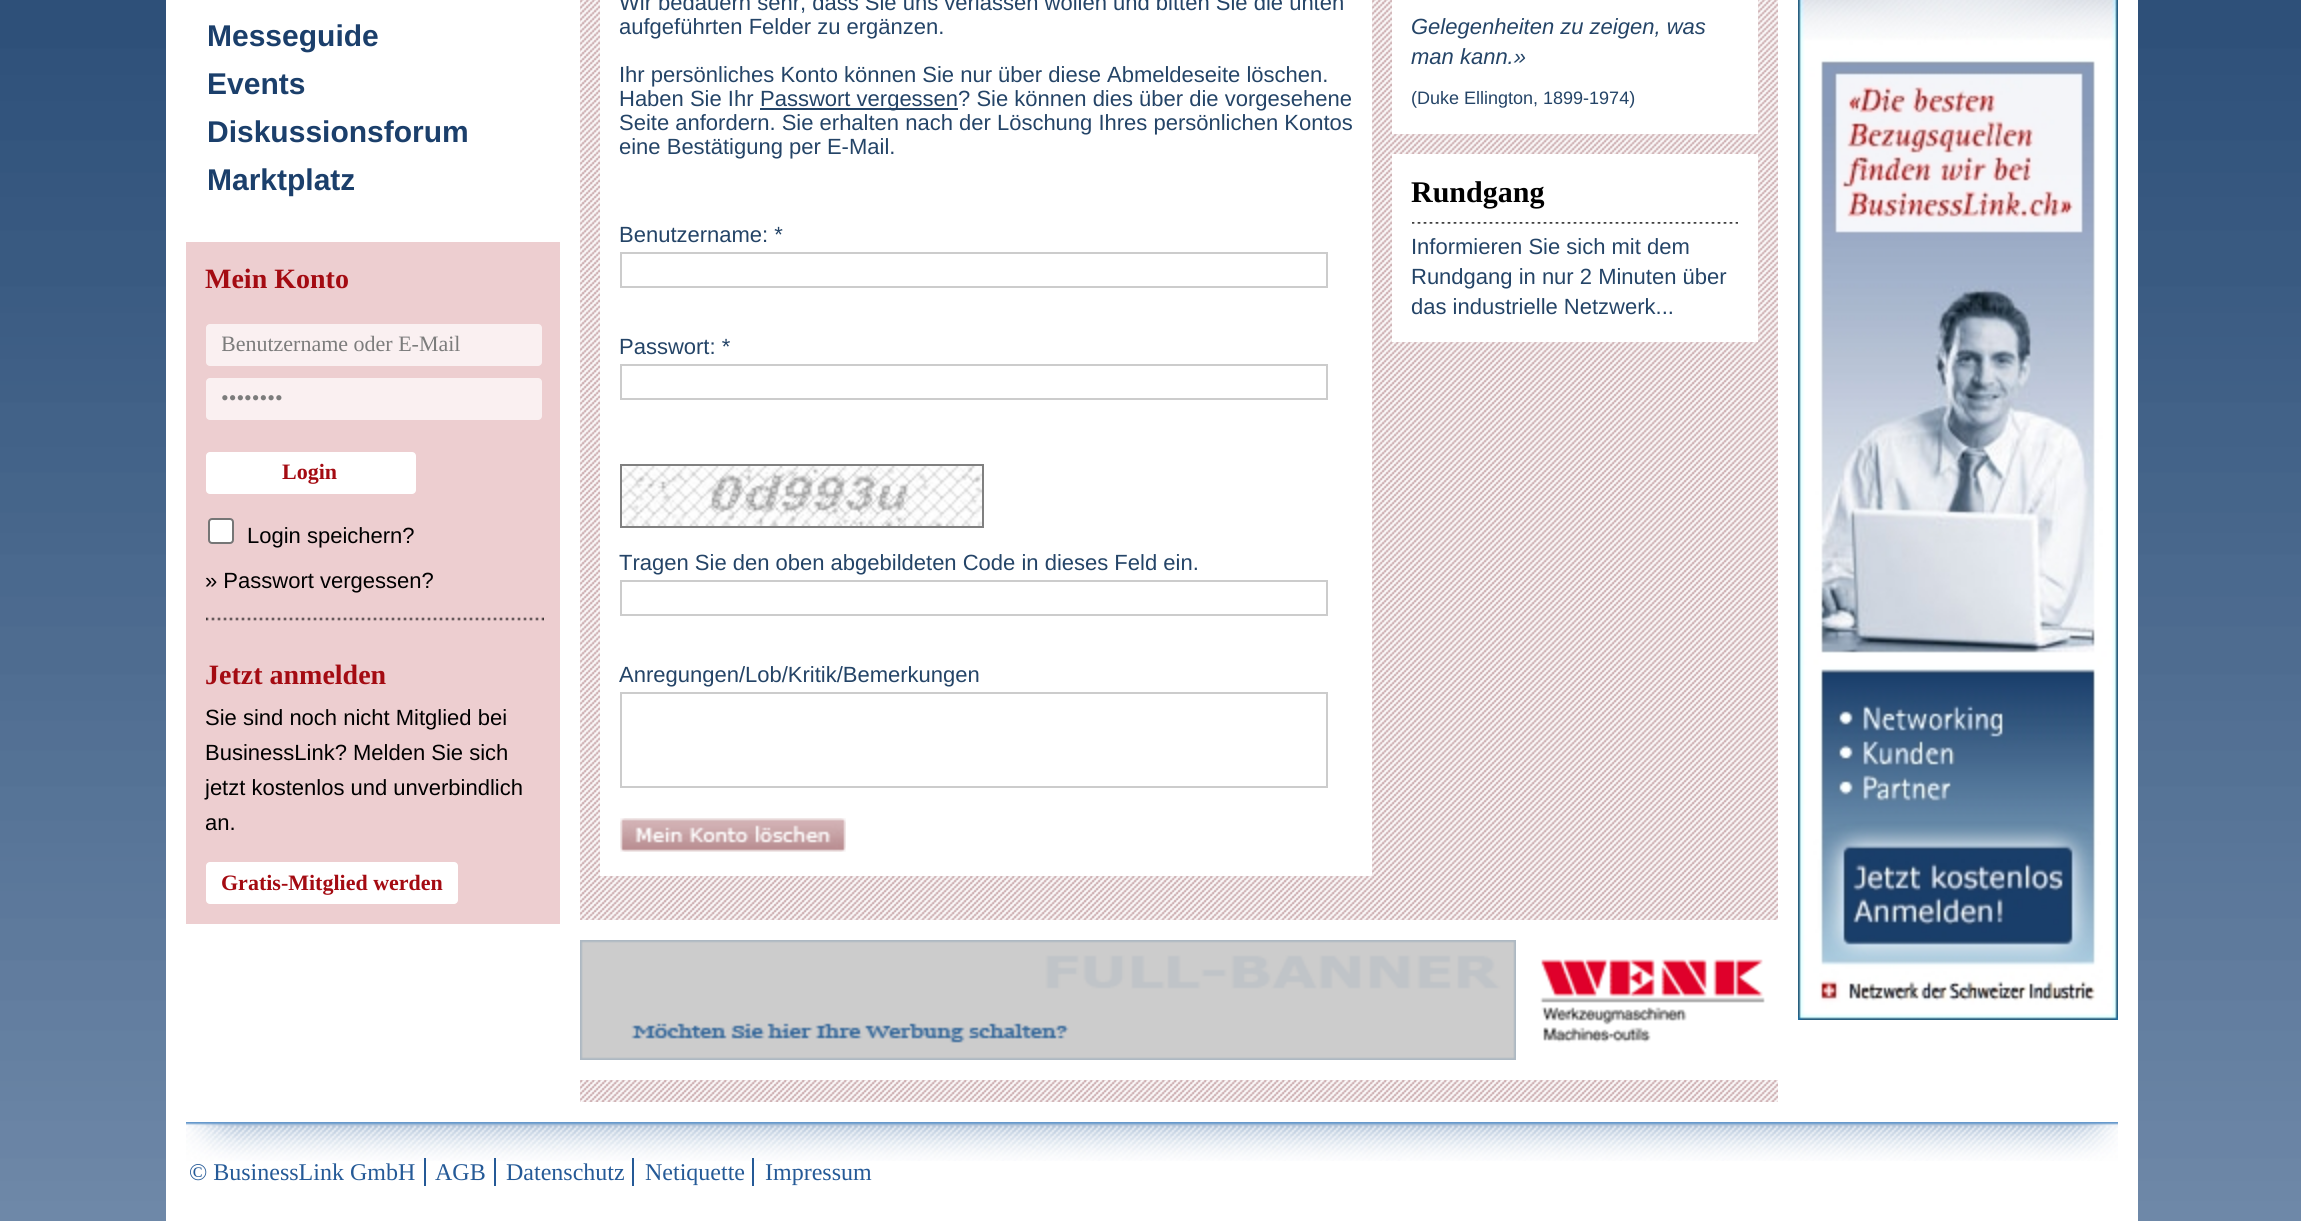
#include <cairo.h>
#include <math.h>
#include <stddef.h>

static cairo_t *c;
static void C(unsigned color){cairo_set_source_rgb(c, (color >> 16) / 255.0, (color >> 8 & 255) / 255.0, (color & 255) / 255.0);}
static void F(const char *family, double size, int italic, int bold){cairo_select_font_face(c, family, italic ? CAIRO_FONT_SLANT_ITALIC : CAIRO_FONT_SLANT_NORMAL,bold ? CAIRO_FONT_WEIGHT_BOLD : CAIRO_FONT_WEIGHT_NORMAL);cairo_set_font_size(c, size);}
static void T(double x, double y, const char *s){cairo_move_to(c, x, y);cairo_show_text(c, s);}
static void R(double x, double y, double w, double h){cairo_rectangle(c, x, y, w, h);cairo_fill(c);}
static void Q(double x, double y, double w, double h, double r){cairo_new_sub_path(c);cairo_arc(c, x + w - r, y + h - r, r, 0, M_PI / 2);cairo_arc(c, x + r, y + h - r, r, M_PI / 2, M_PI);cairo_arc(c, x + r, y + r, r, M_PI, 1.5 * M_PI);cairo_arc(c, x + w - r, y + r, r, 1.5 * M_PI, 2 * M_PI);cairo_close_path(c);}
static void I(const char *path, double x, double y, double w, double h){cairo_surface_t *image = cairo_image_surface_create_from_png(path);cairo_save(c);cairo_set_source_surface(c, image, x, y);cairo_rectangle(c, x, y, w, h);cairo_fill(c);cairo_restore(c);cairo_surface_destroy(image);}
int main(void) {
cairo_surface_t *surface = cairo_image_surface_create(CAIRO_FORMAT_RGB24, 2301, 1221);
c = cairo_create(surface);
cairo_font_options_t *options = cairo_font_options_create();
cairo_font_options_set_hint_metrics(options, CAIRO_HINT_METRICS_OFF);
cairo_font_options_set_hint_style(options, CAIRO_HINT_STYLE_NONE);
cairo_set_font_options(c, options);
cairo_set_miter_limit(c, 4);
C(0xffffff);
cairo_paint(c);
I("1.png",0,670,2301,551);
I("2.png",0,0,2301,670);
C(0xffffff);
R(166,0,1972,1221);
F("Liberation Sans",30,0,1);
C(0x1b3f6b);
T(207,46,"Messeguide");
T(207,94,"Events");
T(207,142,"Diskussionsforum");
T(207,190,"Marktplatz");
C(0xedced0);
R(186,242,374,682);
F("Liberation Serif",28,0,1);
C(0xa40b12);
T(205,288,"Mein Konto");
C(0xfaf0f1);
Q(206,324,336,42,4);
cairo_fill(c);
cairo_save(c);
cairo_rectangle(c,222,332,320,24);
cairo_clip(c);
F("Liberation Serif",22,0,0);
C(0x7c7c7c);
T(221,351,"Benutzername oder E-Mail");
cairo_restore(c);
Q(206,378,336,42,4);
cairo_fill(c);
F("Liberation Serif",22,0,0);
C(0x7c7c7c);
T(221,405,"••••••••");
C(0xffffff);
Q(206,452,210,42,4);
cairo_fill(c);
F("Liberation Serif",22,0,1);
C(0xa40b12);
T(282,479,"Login");
C(0xffffff);
Q(209,519,24,24,3);
cairo_fill_preserve(c);
C(0x767676);
cairo_stroke(c);
F("Liberation Sans",22,0,0);
C(0x000000);
T(247,543,"Login speichern?");
T(205,588,"» Passwort vergessen?");
I("3.png",206,617,338,4);
F("Liberation Serif",28,0,1);
C(0xa40b12);
T(205,684,"Jetzt anmelden");
F("Liberation Sans",22,0,0);
C(0x000000);
T(205,725,"Sie sind noch nicht Mitglied bei");
T(205,760,"BusinessLink? Melden Sie sich");
T(205,795,"jetzt kostenlos und unverbindlich");
T(205,830,"an.");
C(0xffffff);
Q(206,862,252,42,4);
cairo_fill(c);
F("Liberation Serif",22,0,1);
C(0xa40b12);
T(221,890,"Gratis-Mitglied werden");
I("4.png",580,0,1198,1102);
C(0xffffff);
R(600,0,772,876);
F("Liberation Sans",22,0,0);
C(0x244467);
T(619,10,"Wir bedauern sehr, dass Sie uns verlassen wollen und bitten Sie die unten");
T(619,34,"aufgeführten Felder zu ergänzen.");
T(619,82,"Ihr persönliches Konto können Sie nur über diese Abmeldeseite löschen.");
T(619,106,"Haben Sie Ihr");
R(760,108,198,2);
T(760,106,"Passwort vergessen? Sie können dies über die vorgesehene");
T(619,130,"Seite anfordern. Sie erhalten nach der Löschung Ihres persönlichen Kontos");
T(619,154,"eine Bestätigung per E-Mail.");
T(619,242,"Benutzername: *");
cairo_rectangle(c,621,253,706,34);
C(0xcccccc);
cairo_stroke(c);
C(0x244467);
T(619,354,"Passwort: *");
cairo_rectangle(c,621,365,706,34);
C(0xcccccc);
cairo_stroke(c);
cairo_rectangle(c,621,465,362,62);
C(0x808080);
cairo_stroke(c);
I("5.png",622,466,360,60);
C(0x244467);
T(619,570,"Tragen Sie den oben abgebildeten Code in dieses Feld ein.");
cairo_rectangle(c,621,581,706,34);
C(0xcccccc);
cairo_stroke(c);
C(0x244467);
T(619,682,"Anregungen/Lob/Kritik/Bemerkungen");
cairo_rectangle(c,621,693,706,94);
C(0xcccccc);
cairo_stroke(c);
I("6.png",620,818,226,34);
C(0xffffff);
R(1392,0,366,134);
F("Liberation Sans",22,1,0);
C(0x244467);
T(1411,34,"Gelegenheiten zu zeigen, was");
T(1411,64,"man kann.»");
F("Liberation Sans",18,0,0);
T(1411,104,"(Duke Ellington, 1899-1974)");
C(0xffffff);
R(1392,154,366,188);
F("Liberation Serif",30,0,1);
C(0x000000);
T(1411,202,"Rundgang");
I("7.png",1412,222,326,2);
F("Liberation Sans",22,0,0);
C(0x244467);
T(1411,254,"Informieren Sie sich mit dem");
T(1411,284,"Rundgang in nur 2 Minuten über");
T(1411,314,"das industrielle Netzwerk...");
C(0xffffff);
R(580,920,1198,160);
I("8.png",580,940,936,120);
I("9.png",1540,959,225,84);
I("10.png",1798,0,320,1020);
I("11.png",186,1122,1932,39);
F("Liberation Serif",24,0,0);
C(0x255a97);
T(189,1180,"© BusinessLink GmbH");
R(424,1158,2,28);
T(435,1180,"AGB");
R(494,1158,2,28);
T(506,1180,"Datenschutz");
R(632,1158,2,28);
T(645,1180,"Netiquette");
R(752,1158,2,28);
T(765,1180,"Impressum");
cairo_surface_write_to_png(surface, "o.png");
cairo_font_options_destroy(options);
cairo_destroy(c);
cairo_surface_destroy(surface);
return 0;
}
